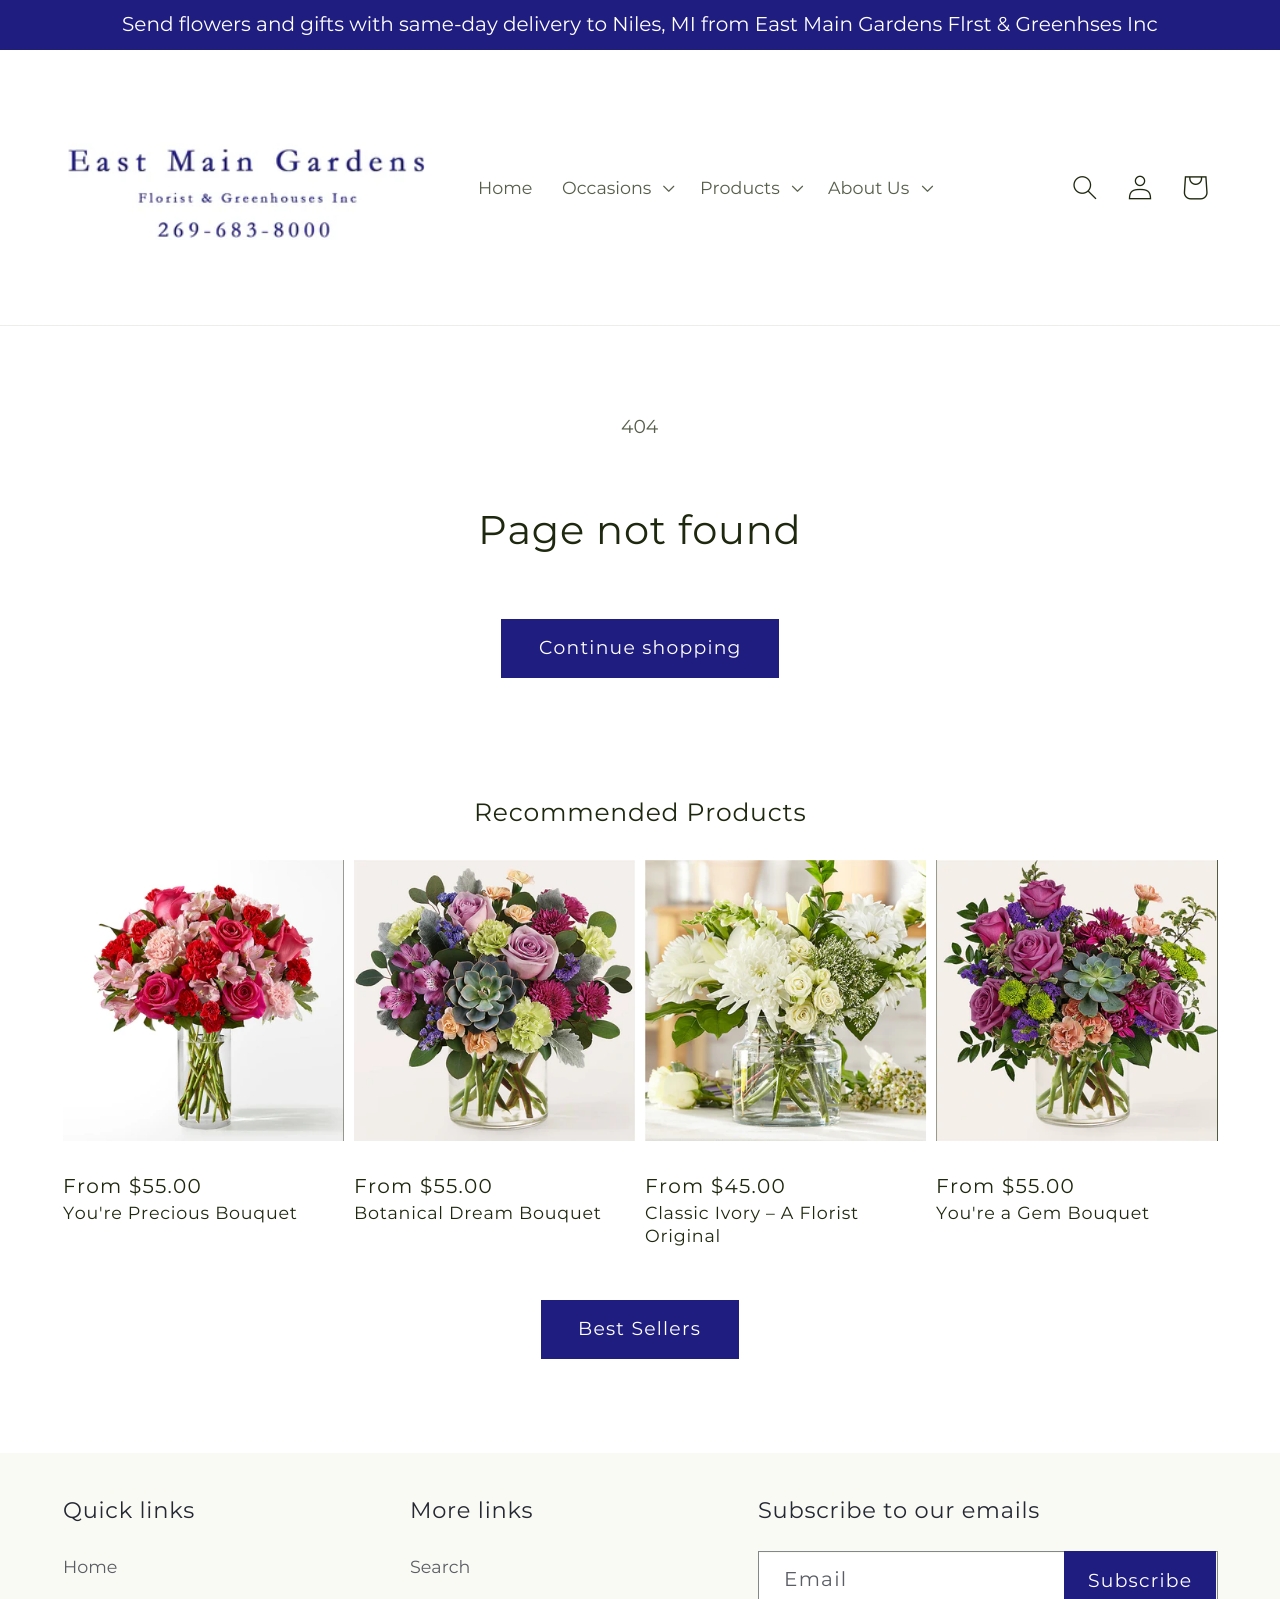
#include <cairo.h>
#include <math.h>
#include <stddef.h>

static cairo_t *c;
static void C(unsigned color){cairo_set_source_rgb(c, (color >> 16) / 255.0, (color >> 8 & 255) / 255.0, (color & 255) / 255.0);}
static void F(const char *family, double size, int italic, int bold){cairo_select_font_face(c, family, italic ? CAIRO_FONT_SLANT_ITALIC : CAIRO_FONT_SLANT_NORMAL,bold ? CAIRO_FONT_WEIGHT_BOLD : CAIRO_FONT_WEIGHT_NORMAL);cairo_set_font_size(c, size);}
static void T(double x, double y, const char *s){cairo_move_to(c, x, y);cairo_show_text(c, s);}
static void L(double x, double y, const char *s, double letter, double word){cairo_move_to(c, x, y);while (*s) {char ch[5] = {0};int n = 0;do ch[n++] = *s++; while ((*s & 0xC0) == 0x80);cairo_show_text(c, ch);cairo_rel_move_to(c, letter + word * (*ch == ' '), 0);}}
static void R(double x, double y, double w, double h){cairo_rectangle(c, x, y, w, h);cairo_fill(c);}
static void I(const char *path, double x, double y, double w, double h){cairo_surface_t *image = cairo_image_surface_create_from_png(path);cairo_save(c);cairo_set_source_surface(c, image, x, y);cairo_rectangle(c, x, y, w, h);cairo_fill(c);cairo_restore(c);cairo_surface_destroy(image);}
int main(void) {
cairo_surface_t *surface = cairo_image_surface_create(CAIRO_FORMAT_RGB24, 1280, 1599);
c = cairo_create(surface);
cairo_font_options_t *options = cairo_font_options_create();
cairo_font_options_set_hint_metrics(options, CAIRO_HINT_METRICS_OFF);
cairo_font_options_set_hint_style(options, CAIRO_HINT_STYLE_NONE);
cairo_set_font_options(c, options);
cairo_set_miter_limit(c, 4);
C(0xffffff);
cairo_paint(c);
C(0x201d80);
R(0,0,1280,49);
C(0x201e77);
R(0,49,1280,1);
F("Montserrat",20,0,0);
C(0xffffff);
T(122,31,"Send flowers and gifts with same-day delivery to Niles, MI from East Main Gardens Flrst & Greenhses Inc");
C(0xedeeec);
R(0,325,1280,1);
I("1.png",68,143,357,97);
F("Montserrat",17.5,0,0);
C(0x565e4b);
T(478,194,"Home");
T(562,194,"Occasions");
I("2.png",663,185,12,7);
T(700,194,"Products");
I("3.png",791,185,13,7);
T(828,194,"About Us");
I("3.png",921,185,13,7);
I("4.png",1073,176,24,24);
I("5.png",1128,175,24,25);
I("6.png",1183,176,25,24);
F("Montserrat",18.75,0,0);
T(621,433,"404");
F("Montserrat",40,0,0);
C(0x1e280f);
L(478,544,"Page not found",.75,0);
C(0x201d80);
R(501,619,278,59);
F("Montserrat",18.75,0,0);
C(0xffffff);
L(539,654,"Continue shopping",1.25,0);
F("Montserrat",25,0,0);
C(0x1e280f);
L(474,821,"Recommended Products",.75,0);
R(343,860,1,281);
I("7.png",63,860,281,281);
F("Montserrat",20,0,0);
L(63,1193,"From $55.00",1.25,0);
F("Montserrat",17.5,0,0);
L(63,1219,"You're Precious Bouquet",.75,0);
I("8.png",354,860,281,281);
F("Montserrat",20,0,0);
L(354,1193,"From $55.00",1.25,0);
F("Montserrat",17.5,0,0);
L(354,1219,"Botanical Dream Bouquet",.75,0);
I("9.png",645,860,282,281);
F("Montserrat",20,0,0);
L(645,1193,"From $45.00",1.25,0);
F("Montserrat",17.5,0,0);
L(645,1219,"Classic Ivory – A Florist",.75,0);
L(645,1242,"Original",.75,0);
R(936,860,282,281);
I("10.png",936,860,282,281);
F("Montserrat",20,0,0);
L(936,1193,"From $55.00",1.25,0);
F("Montserrat",17.5,0,0);
L(936,1219,"You're a Gem Bouquet",.75,0);
C(0x201d80);
R(541,1300,198,59);
F("Montserrat",18.75,0,0);
C(0xffffff);
L(578,1335,"Best Sellers",1.25,0);
C(0xfafaf5);
R(0,1453,1280,146);
F("Montserrat",22.5,0,0);
C(0x242833);
L(63,1518,"Quick links",.75,0);
F("Montserrat",17.5,0,0);
C(0x5a5d64);
T(63,1573,"Home");
F("Montserrat",22.5,0,0);
C(0x242833);
L(410,1518,"More links",.75,0);
F("Montserrat",17.5,0,0);
C(0x5a5d64);
T(410,1573,"Search");
F("Montserrat",22.5,0,0);
C(0x242833);
L(758,1518,"Subscribe to our emails",.75,0);
C(0xffffff);
R(759,1553,305,46);
cairo_rectangle(c,758.5,1551.5,459,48);
C(0x84878a);
cairo_set_line_width(c,1);
cairo_stroke(c);
F("Montserrat",20,0,0);
C(0x5a5d64);
L(784,1586,"Email",1.25,0);
C(0x201d80);
R(1064,1551,152,48);
F("Montserrat",18.75,0,0);
C(0xffffff);
L(1088,1587,"Subscribe",1.25,0);
cairo_surface_write_to_png(surface, "o.png");
cairo_font_options_destroy(options);
cairo_destroy(c);
cairo_surface_destroy(surface);
return 0;
}
